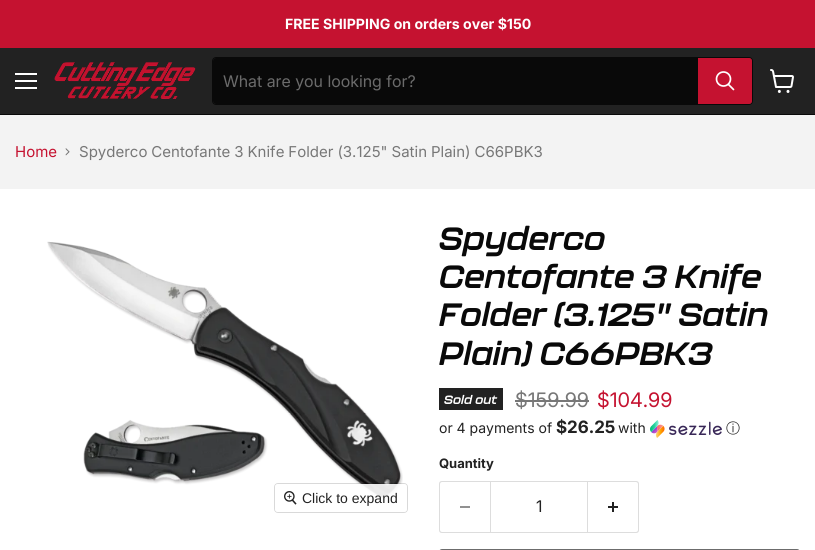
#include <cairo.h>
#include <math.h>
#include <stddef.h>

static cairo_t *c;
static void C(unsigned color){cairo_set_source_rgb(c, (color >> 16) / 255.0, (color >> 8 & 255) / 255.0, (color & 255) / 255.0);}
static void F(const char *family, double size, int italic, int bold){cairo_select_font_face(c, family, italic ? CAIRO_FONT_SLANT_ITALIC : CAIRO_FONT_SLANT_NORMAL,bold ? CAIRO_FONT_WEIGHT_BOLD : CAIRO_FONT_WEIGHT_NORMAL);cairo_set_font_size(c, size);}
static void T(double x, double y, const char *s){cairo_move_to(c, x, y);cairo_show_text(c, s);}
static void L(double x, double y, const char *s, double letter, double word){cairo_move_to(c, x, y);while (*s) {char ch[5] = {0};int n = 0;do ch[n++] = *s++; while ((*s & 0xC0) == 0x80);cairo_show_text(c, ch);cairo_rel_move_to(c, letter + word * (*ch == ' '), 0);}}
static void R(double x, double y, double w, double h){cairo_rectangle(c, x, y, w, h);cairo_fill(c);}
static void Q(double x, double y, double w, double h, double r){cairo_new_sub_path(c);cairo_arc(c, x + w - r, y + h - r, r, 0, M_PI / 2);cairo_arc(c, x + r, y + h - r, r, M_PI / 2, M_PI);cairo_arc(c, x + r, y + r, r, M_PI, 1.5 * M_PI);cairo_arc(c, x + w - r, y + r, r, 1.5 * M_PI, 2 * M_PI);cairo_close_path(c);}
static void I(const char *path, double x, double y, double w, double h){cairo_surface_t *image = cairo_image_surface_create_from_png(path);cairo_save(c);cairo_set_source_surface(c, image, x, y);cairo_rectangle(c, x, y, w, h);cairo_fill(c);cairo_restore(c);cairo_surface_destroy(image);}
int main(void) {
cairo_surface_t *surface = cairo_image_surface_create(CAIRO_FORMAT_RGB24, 815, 550);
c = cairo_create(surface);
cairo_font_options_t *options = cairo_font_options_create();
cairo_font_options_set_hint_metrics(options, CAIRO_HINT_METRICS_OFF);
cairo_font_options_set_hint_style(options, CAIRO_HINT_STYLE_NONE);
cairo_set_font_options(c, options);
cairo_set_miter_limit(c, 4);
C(0xf3f3f3);
cairo_paint(c);
C(0xc51230);
R(0,0,815,48);
F("Inter",14.1,0,1);
C(0xffffff);
T(285,29,"FREE SHIPPING on orders over $150");
C(0x222222);
R(0,48,815,66);
C(0x090909);
R(0,114,815,1);
C(0xffffff);
R(15,73,22,2);
R(15,80,22,2);
R(15,87,22,2);
I("1.png",54,62,142,38);
Q(212.5,57.5,540,47,3.5);
C(0x090909);
cairo_set_line_width(c,1);
cairo_stroke(c);
cairo_new_path(c);
cairo_move_to(c,216,58);
cairo_line_to(c,698,58);
cairo_line_to(c,698,104);
cairo_line_to(c,216,104);
cairo_curve_to(c,214.5,104,213,102.5,213,101);
cairo_line_to(c,213,61);
cairo_curve_to(c,213,59.5,214.5,58,216,58);
cairo_close_path(c);
cairo_fill(c);
F("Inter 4",16,0,0);
C(0x6b6b6b);
T(223,87,"What are you looking for?");
C(0xc51230);
cairo_new_path(c);
cairo_move_to(c,698.5,58.5);
cairo_line_to(c,749,58.5);
cairo_curve_to(c,750.5,58.5,751.5,59.5,751.5,61);
cairo_line_to(c,751.5,101);
cairo_curve_to(c,751.5,102.5,750.5,103.5,749,103.5);
cairo_line_to(c,698.5,103.5);
cairo_close_path(c);
cairo_fill_preserve(c);
cairo_stroke(c);
cairo_new_path(c);
cairo_move_to(c,733.5,89.5);
cairo_line_to(c,728.5,84.5);
C(0xffffff);
cairo_set_line_width(c,1.7);
cairo_set_line_cap(c,CAIRO_LINE_CAP_ROUND);
cairo_stroke(c);
cairo_arc(c,723.5,79,7,0,2 * M_PI);
cairo_set_line_cap(c,CAIRO_LINE_CAP_BUTT);
cairo_stroke(c);
I("2.png",770,69,24,24);
F("Inter",15,0,0);
C(0xc51230);
T(15,157,"Home");
I("3.png",65,148,5,8);
C(0x777777);
L(79,157,"Spyderco Centofante 3 Knife Folder (3.125\" Satin Plain) C66PBK3",0,-.25);
C(0xffffff);
R(0,189,815,361);
I("4.png",47,241,356,260);
Q(274.5,483.5,133,29,3.5);
cairo_set_source_rgba(c,0,0,0,0.15);
cairo_set_line_width(c,1);
cairo_stroke(c);
cairo_set_source_rgba(c,1,1,1,0.9);
Q(275,484,132,28,3);
cairo_fill(c);
I("5.png",284,491,13,14);
F("Liberation Sans",14,0,0);
C(0x222222);
T(302,503,"Click to expand");
F("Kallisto",32,1,1);
C(0x090909);
T(439,250,"Spyderco");
T(439,288,"Centofante 3 Knife");
T(439,326,"Folder (3.125\" Satin");
T(439,365,"Plain) C66PBK3");
C(0x222222);
R(439,388,64,22);
F("Kallisto",12,1,1);
C(0xffffff);
T(444,404,"Sold out");
F("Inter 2",20,0,0);
C(0x777777);
T(515,407,"$159.99");
R(515,400,74,2);
C(0xc51230);
T(597,407,"$104.99");
F("Inter",14,0,0);
C(0x222222);
T(439,433,"or 4 payments of");
F("Inter 2",17,0,1);
T(556,433,"$26.25");
F("Inter",14,0,0);
T(618,433,"with");
I("6.png",650,420,72,18);
F("WenQuanYi Zen Hei Medium",14,0,0);
T(726,433,"ⓘ");
F("Inter",13,0,1);
T(439,468,"Quantity");
C(0xdddddd);
cairo_set_fill_rule(c,CAIRO_FILL_RULE_EVEN_ODD);
cairo_new_path(c);
cairo_move_to(c,442,481);
cairo_line_to(c,490,481);
cairo_line_to(c,490,533);
cairo_line_to(c,442,533);
cairo_curve_to(c,440,533,439,532,439,530);
cairo_line_to(c,439,484);
cairo_curve_to(c,439,482,440,481,442,481);
cairo_close_path(c);
cairo_move_to(c,442,482);
cairo_line_to(c,490,482);
cairo_line_to(c,490,532);
cairo_line_to(c,442,532);
cairo_curve_to(c,441,532,440,531,440,530);
cairo_line_to(c,440,484);
cairo_curve_to(c,440,483,441,482,442,482);
cairo_close_path(c);
cairo_fill(c);
C(0x919191);
R(460,506,10,2);
cairo_rectangle(c,490.5,481.5,97,51);
C(0xdddddd);
cairo_stroke(c);
F("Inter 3",16,0,0);
C(0x222222);
T(536,512,"1");
C(0xdddddd);
cairo_new_path(c);
cairo_move_to(c,588,481);
cairo_line_to(c,636,481);
cairo_curve_to(c,638,481,639,482,639,484);
cairo_line_to(c,639,530);
cairo_curve_to(c,639,532,638,533,636,533);
cairo_line_to(c,588,533);
cairo_close_path(c);
cairo_move_to(c,588,482);
cairo_line_to(c,636,482);
cairo_curve_to(c,637,482,638,483,638,484);
cairo_line_to(c,638,530);
cairo_curve_to(c,638,531,637,532,636,532);
cairo_line_to(c,588,532);
cairo_close_path(c);
cairo_fill(c);
I("7.png",608,502,10,10);
Q(439.5,549.5,360,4,2.5);
C(0x6c6c6c);
cairo_stroke(c);
cairo_surface_write_to_png(surface, "o.png");
cairo_font_options_destroy(options);
cairo_destroy(c);
cairo_surface_destroy(surface);
return 0;
}
